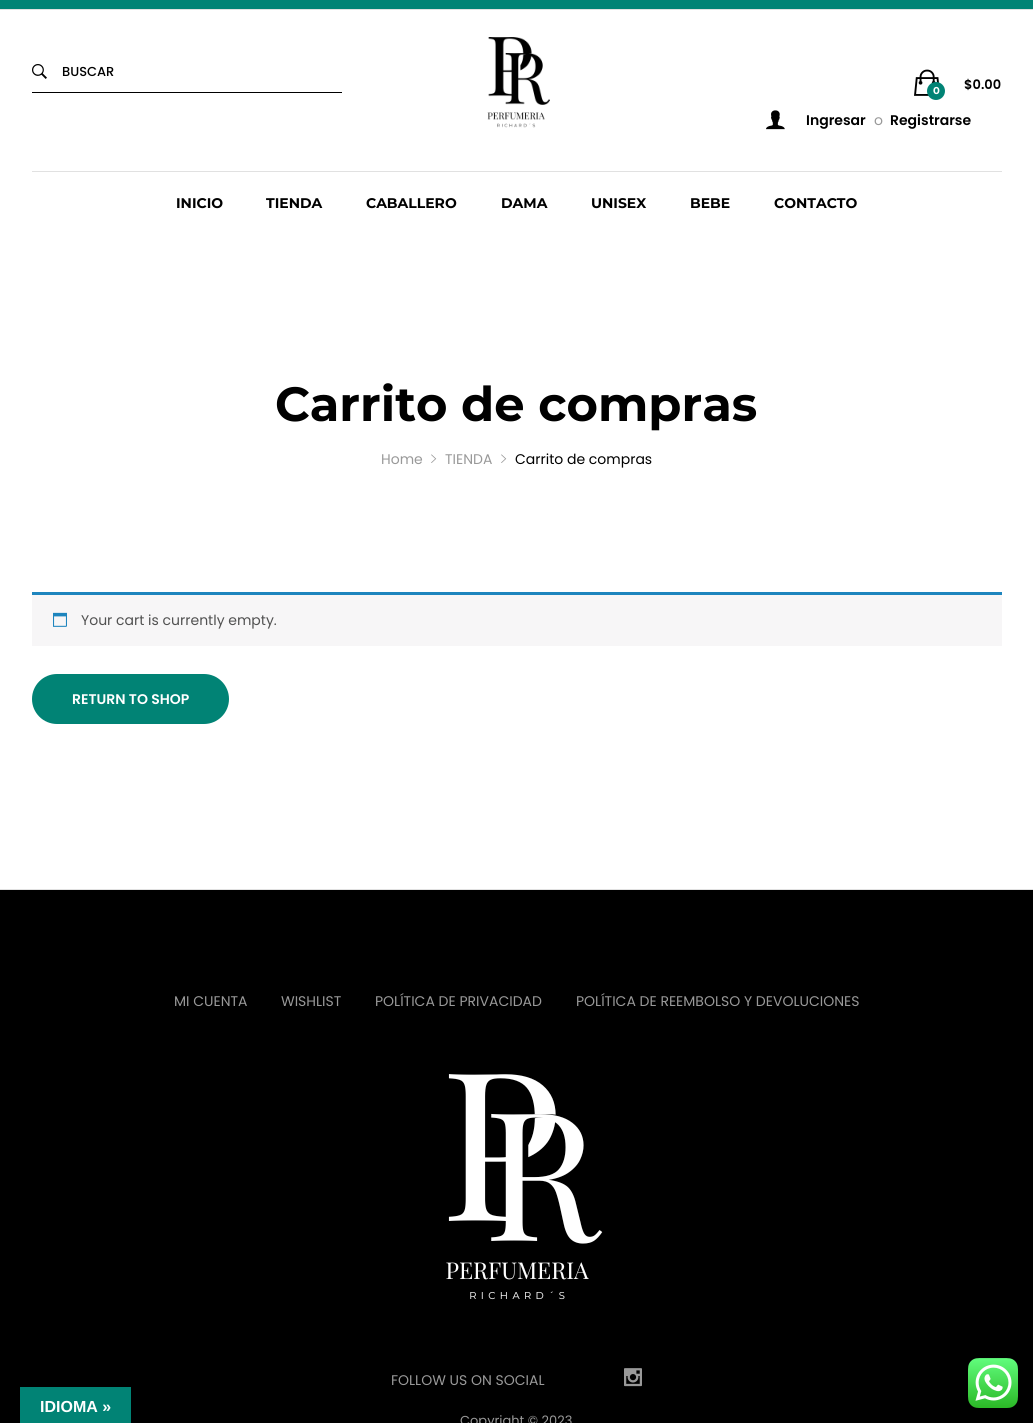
#include <cairo.h>
#include <math.h>
#include <stddef.h>

static cairo_t *c;
static void C(unsigned color){cairo_set_source_rgb(c, (color >> 16) / 255.0, (color >> 8 & 255) / 255.0, (color & 255) / 255.0);}
static void F(const char *family, double size, int italic, int bold){cairo_select_font_face(c, family, italic ? CAIRO_FONT_SLANT_ITALIC : CAIRO_FONT_SLANT_NORMAL,bold ? CAIRO_FONT_WEIGHT_BOLD : CAIRO_FONT_WEIGHT_NORMAL);cairo_set_font_size(c, size);}
static void T(double x, double y, const char *s){cairo_move_to(c, x, y);cairo_show_text(c, s);}
static void R(double x, double y, double w, double h){cairo_rectangle(c, x, y, w, h);cairo_fill(c);}
static void Q(double x, double y, double w, double h, double r){cairo_new_sub_path(c);cairo_arc(c, x + w - r, y + h - r, r, 0, M_PI / 2);cairo_arc(c, x + r, y + h - r, r, M_PI / 2, M_PI);cairo_arc(c, x + r, y + r, r, M_PI, 1.5 * M_PI);cairo_arc(c, x + w - r, y + r, r, 1.5 * M_PI, 2 * M_PI);cairo_close_path(c);}
static void I(const char *path, double x, double y, double w, double h){cairo_surface_t *image = cairo_image_surface_create_from_png(path);cairo_save(c);cairo_set_source_surface(c, image, x, y);cairo_rectangle(c, x, y, w, h);cairo_fill(c);cairo_restore(c);cairo_surface_destroy(image);}
int main(void) {
cairo_surface_t *surface = cairo_image_surface_create(CAIRO_FORMAT_RGB24, 1033, 1423);
c = cairo_create(surface);
cairo_font_options_t *options = cairo_font_options_create();
cairo_font_options_set_hint_metrics(options, CAIRO_HINT_METRICS_OFF);
cairo_font_options_set_hint_style(options, CAIRO_HINT_STYLE_NONE);
cairo_set_font_options(c, options);
cairo_set_miter_limit(c, 4);
C(0xffffff);
cairo_paint(c);
C(0x018375);
R(0,0,1033,9);
C(0xe1e1e1);
R(0,9,1033,1);
I("1.png",32,64,15,15);
C(0x000000);
R(32,92,310,1);
F("Poppins Medium",13,0,0);
T(62,76,"BUSCAR");
I("2.png",487,37,63,91);
I("3.png",914,69,25,27);
F("Poppins SemiBold",13,0,0);
T(964,89,"$0.00");
C(0x018375);
cairo_new_path(c);
cairo_arc(c,936,91,9,0,2 * M_PI);
cairo_fill(c);
F("Montserrat",10,0,1);
C(0xffffff);
T(933,94,"0");
I("4.png",766,110,19,20);
F("Poppins SemiBold",14,0,0);
C(0x000000);
T(806,125,"Ingresar");
F("Poppins",14,0,0);
C(0x999999);
T(874,125,"o");
F("Poppins SemiBold",14,0,0);
C(0x000000);
T(890,125,"Registrarse");
C(0xe1e1e1);
R(32,171,970,1);
F("Montserrat",14,0,1);
C(0x000000);
T(176,208,"INICIO");
T(266,208,"TIENDA");
T(366,208,"CABALLERO");
T(501,208,"DAMA");
T(591,208,"UNISEX");
T(690,208,"BEBE");
T(774,208,"CONTACTO");
F("Montserrat",48,0,1);
T(275,421,"Carrito de compras");
F("Poppins",14,0,0);
C(0x999999);
T(381,464,"Home");
I("5.png",431,454,6,9);
T(445,464,"TIENDA");
I("5.png",501,454,6,9);
C(0x000000);
T(515,464,"Carrito de compras");
C(0xf7f6f7);
R(32,595,970,51);
C(0x1e85be);
R(32,592,970,3);
I("6.png",53,612,14,15);
C(0x515151);
T(81,625,"Your cart is currently empty.");
C(0x018375);
Q(32,674,197,50,25);
cairo_fill(c);
F("Poppins SemiBold",14,0,0);
C(0xffffff);
T(72,704,"RETURN TO SHOP");
C(0x000000);
R(0,890,1033,533);
C(0xe1e1e1);
R(0,889,1033,1);
F("Poppins",14,0,0);
C(0x999999);
T(174,1006,"MI CUENTA");
T(281,1006,"WISHLIST");
T(375,1006,"POLÍTICA DE PRIVACIDAD");
T(576,1006,"POLÍTICA DE REEMBOLSO Y DEVOLUCIONES");
I("7.png",446,1074,157,226);
T(391,1385,"FOLLOW US ON SOCIAL");
I("8.png",624,1368,18,19);
F("Poppins",13,0,0);
T(460,1425,"Copyright © 2023");
C(0x018375);
R(20,1387,111,36);
F("Liberation Sans",16,0,1);
C(0xffffff);
T(40,1412,"IDIOMA »");
I("9.png",968,1358,50,50);
cairo_surface_write_to_png(surface, "o.png");
cairo_font_options_destroy(options);
cairo_destroy(c);
cairo_surface_destroy(surface);
return 0;
}
